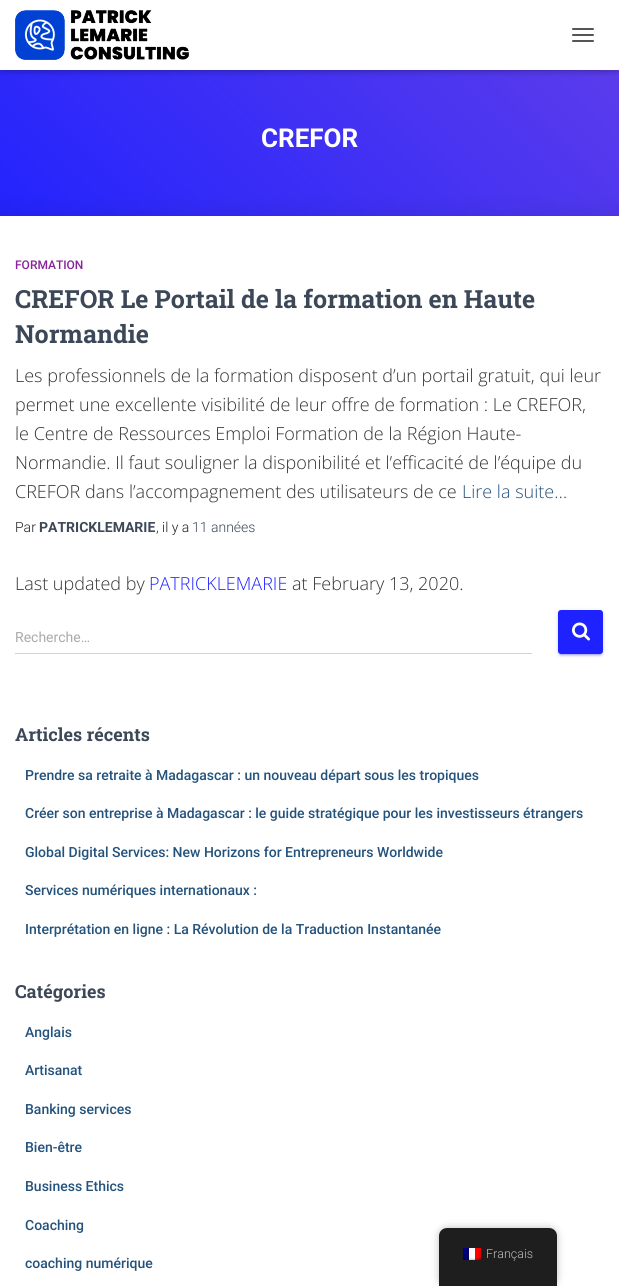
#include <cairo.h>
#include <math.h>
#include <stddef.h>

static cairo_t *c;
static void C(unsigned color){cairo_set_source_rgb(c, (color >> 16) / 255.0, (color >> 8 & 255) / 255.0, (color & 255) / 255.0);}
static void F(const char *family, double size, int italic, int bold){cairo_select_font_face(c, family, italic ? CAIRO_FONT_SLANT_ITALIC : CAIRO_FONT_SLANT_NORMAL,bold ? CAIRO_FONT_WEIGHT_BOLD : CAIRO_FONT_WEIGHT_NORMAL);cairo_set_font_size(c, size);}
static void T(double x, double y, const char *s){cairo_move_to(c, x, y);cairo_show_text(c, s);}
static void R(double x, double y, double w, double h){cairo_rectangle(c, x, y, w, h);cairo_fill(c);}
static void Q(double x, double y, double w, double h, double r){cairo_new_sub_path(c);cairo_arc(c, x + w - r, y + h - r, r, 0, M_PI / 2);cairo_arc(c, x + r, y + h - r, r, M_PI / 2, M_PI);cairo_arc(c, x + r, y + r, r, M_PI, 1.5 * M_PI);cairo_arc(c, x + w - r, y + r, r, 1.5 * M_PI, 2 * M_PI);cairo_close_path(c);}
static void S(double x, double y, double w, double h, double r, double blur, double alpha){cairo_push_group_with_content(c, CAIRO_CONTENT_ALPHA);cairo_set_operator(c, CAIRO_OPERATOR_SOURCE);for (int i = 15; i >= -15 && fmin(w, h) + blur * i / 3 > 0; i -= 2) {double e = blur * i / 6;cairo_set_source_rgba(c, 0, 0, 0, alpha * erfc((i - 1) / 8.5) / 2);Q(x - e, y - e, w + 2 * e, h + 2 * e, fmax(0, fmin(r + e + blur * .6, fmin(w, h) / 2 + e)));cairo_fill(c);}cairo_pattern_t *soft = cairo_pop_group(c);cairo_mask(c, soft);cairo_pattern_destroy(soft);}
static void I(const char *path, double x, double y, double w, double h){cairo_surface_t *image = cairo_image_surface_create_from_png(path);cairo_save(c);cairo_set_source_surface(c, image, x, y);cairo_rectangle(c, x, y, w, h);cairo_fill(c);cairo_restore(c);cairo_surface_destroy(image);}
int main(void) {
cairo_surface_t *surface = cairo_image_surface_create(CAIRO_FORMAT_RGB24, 619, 1286);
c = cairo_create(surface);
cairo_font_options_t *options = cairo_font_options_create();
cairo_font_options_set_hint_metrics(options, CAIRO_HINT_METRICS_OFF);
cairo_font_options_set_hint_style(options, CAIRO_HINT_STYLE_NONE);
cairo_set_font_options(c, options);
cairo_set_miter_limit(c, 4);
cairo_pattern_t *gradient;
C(0xffffff);
cairo_paint(c);
gradient = cairo_pattern_create_linear(86,362,533,-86);
cairo_pattern_add_color_stop_rgba(gradient,0,0.118,0.133,1,1);
cairo_pattern_add_color_stop_rgba(gradient,1,0.376,0.243,0.918,1);
cairo_set_source(c,gradient);
cairo_pattern_destroy(gradient);
R(0,70,619,146);
C(0x000000);
S(2,6,615,66,0,2.5,.1);
S(0,1,619,70,0,5,.12);
S(6,7,607,58,0,5,.42);
C(0xffffff);
R(0,0,619,70);
I("1.png",15,10,174,50);
C(0x555555);
Q(572,28,22,2,1);
cairo_fill(c);
Q(572,34,22,2,1);
cairo_fill(c);
Q(572,40,22,2,1);
cairo_fill(c);
F("Roboto",26,0,1);
C(0xffffff);
T(261,147,"CREFOR");
C(0x000000);
S(-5,217,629,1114,0,15,.12);
C(0xffffff);
R(0,216,619,1070);
F("Roboto Medium",12,0,0);
C(0x89229b);
T(15,269,"FORMATION");
F("Roboto Slab",25,0,1);
C(0x3c4858);
T(15,308,"CREFOR Le Portail de la formation en Haute");
T(15,343,"Normandie");
F("Open Sans Light",18,0,0);
C(0x333333);
T(15,382,"Les professionnels de la formation disposent d’un portail gratuit, qui leur");
T(15,411,"permet une excellente visibilité de leur offre de formation : Le CREFOR,");
T(15,440,"le Centre de Ressources Emploi Formation de la Région Haute-");
T(15,469,"Normandie. Il faut souligner la disponibilité et l’efficacité de l’équipe du");
T(15,498,"CREFOR dans l’accompagnement des utilisateurs de ce");
C(0x23527c);
T(462,498,"Lire la suite…");
F("Roboto Light",14,0,0);
C(0x212121);
T(15,532,"Par");
F("Roboto",14,0,1);
C(0x3c4858);
T(39,532,"PATRICKLEMARIE");
F("Roboto Light",14,0,0);
C(0x212121);
T(156,532,", il y a");
C(0x3c4858);
T(192,532,"11 années");
F("Open Sans Light",18,0,0);
C(0x333333);
T(15,590,"Last updated by");
C(0x1e22ff);
T(149,590,"PATRICKLEMARIE");
C(0x333333);
T(292,590,"at February 13, 2020.");
F("Roboto",14,0,0);
C(0xaaaaaa);
T(15,642,"Recherche…");
C(0xd2d2d2);
R(15,653,517,1);
C(0x1e22ff);
S(558,611,45,44,3,2.5,.12);
S(560,615,41,40,1,.5,.2);
S(558,612,45,44,3,1,.14);
C(0x1e22ff);
Q(558,610,45,44,3);
cairo_fill(c);
I("2.png",572,622,18,19);
F("Roboto Slab",18,0,1);
C(0x3c4858);
T(15,741,"Articles récents");
F("Roboto Medium",14,0,0);
C(0x23527c);
T(25,780,"Prendre sa retraite à Madagascar : un nouveau départ sous les tropiques");
T(25,818,"Créer son entreprise à Madagascar : le guide stratégique pour les investisseurs étrangers");
T(25,857,"Global Digital Services: New Horizons for Entrepreneurs Worldwide");
T(25,895,"Services numériques internationaux :");
T(25,934,"Interprétation en ligne : La Révolution de la Traduction Instantanée");
F("Roboto Slab",18,0,1);
C(0x3c4858);
T(15,998,"Catégories");
F("Roboto Medium",14,0,0);
C(0x23527c);
T(25,1037,"Anglais");
T(25,1075,"Artisanat");
T(25,1114,"Banking services");
T(25,1152,"Bien-être");
T(25,1191,"Business Ethics");
T(25,1230,"Coaching");
T(25,1268,"coaching numérique");
C(0x000000);
S(439,1228,118,58,8,4,.25);
C(0x1e1e1e);
cairo_new_path(c);
cairo_move_to(c,447,1228);
cairo_line_to(c,549,1228);
cairo_curve_to(c,553.5,1228,557,1231.5,557,1236);
cairo_line_to(c,557,1286);
cairo_line_to(c,439,1286);
cairo_line_to(c,439,1236);
cairo_curve_to(c,439,1231.5,442.5,1228,447,1228);
cairo_close_path(c);
cairo_fill(c);
I("3.png",463,1248,18,12);
F("Roboto Light",12.5,0,0);
C(0xbdbdbd);
T(486,1258,"Français");
cairo_surface_write_to_png(surface, "o.png");
cairo_font_options_destroy(options);
cairo_destroy(c);
cairo_surface_destroy(surface);
return 0;
}
